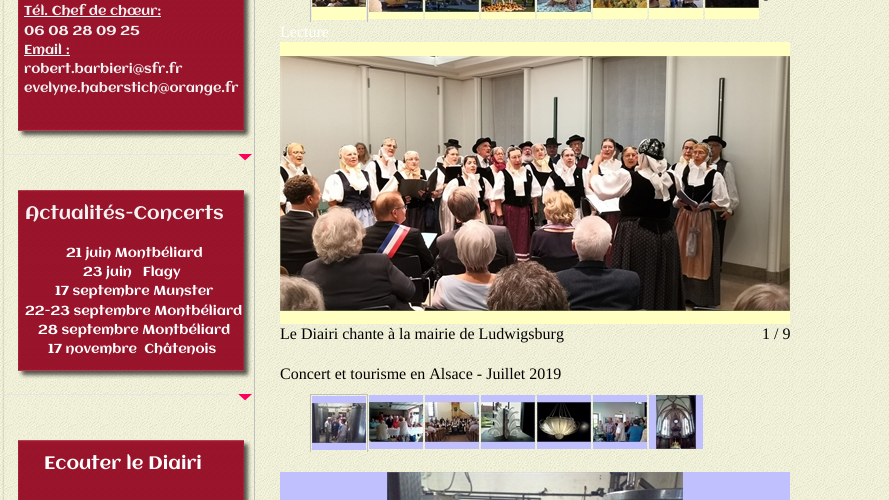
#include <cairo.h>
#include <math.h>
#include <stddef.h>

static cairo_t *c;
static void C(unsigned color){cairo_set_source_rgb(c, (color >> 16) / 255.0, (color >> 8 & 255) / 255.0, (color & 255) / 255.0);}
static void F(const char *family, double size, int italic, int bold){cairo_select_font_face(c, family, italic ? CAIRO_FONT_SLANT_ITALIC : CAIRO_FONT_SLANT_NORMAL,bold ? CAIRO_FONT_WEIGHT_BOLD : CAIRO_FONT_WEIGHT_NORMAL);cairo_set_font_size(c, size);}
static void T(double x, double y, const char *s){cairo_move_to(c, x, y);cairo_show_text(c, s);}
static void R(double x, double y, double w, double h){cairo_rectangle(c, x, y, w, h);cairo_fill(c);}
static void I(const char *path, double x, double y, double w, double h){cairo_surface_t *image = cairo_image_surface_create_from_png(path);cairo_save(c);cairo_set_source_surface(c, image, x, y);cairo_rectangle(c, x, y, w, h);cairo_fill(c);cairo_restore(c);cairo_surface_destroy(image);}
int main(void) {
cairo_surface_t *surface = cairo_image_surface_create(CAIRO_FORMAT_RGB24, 889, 500);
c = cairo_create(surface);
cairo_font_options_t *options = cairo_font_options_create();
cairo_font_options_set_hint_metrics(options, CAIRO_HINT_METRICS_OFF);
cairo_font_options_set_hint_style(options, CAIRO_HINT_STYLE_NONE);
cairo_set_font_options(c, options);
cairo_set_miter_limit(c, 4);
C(0xffffff);
cairo_paint(c);
I("1.png",0,0,889,500);
I("2.png",2,0,2,500);
I("3.png",18,0,226,131);
I("4.png",244,0,8,131);
I("5.png",18,131,226,8);
I("6.png",244,131,8,8);
C(0xbfbfbf);
R(254,0,1,500);
C(0xf2f2f2);
R(24,16,137,1);
F("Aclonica",13,0,0);
T(24,15,"Tél. Chef de chœur:");
T(24,35,"06 08 28 09 25");
R(24,55,46,1);
T(24,54,"Email :");
T(24,73,"robert.barbieri@sfr.fr");
T(24,92,"evelyne.haberstich@orange.fr");
C(0xe4e5e5);
R(4,154,226,1);
I("7.png",238,154,14,7);
I("8.png",18,190,226,181);
I("9.png",244,190,8,181);
I("10.png",18,371,226,8);
I("11.png",244,371,8,8);
F("Aclonica",18,0,0);
C(0xf2f2f2);
T(25,219,"Actualités-Concerts");
F("Aclonica",13,0,0);
C(0xffffff);
T(66,257,"21 juin Montbéliard");
T(83,276,"23 juin   Flagy");
T(55,295,"17 septembre Munster");
T(25,315,"22-23 septembre Montbéliard");
T(38,334,"28 septembre Montbéliard");
T(48,353,"17 novembre  Châtenois");
C(0xe4e5e5);
R(4,394,226,1);
I("12.png",238,394,14,7);
I("13.png",18,440,226,60);
I("14.png",244,440,8,60);
F("Aclonica",18,0,0);
C(0xffffff);
T(44,469,"Ecouter le Diairi");
cairo_save(c);
cairo_rectangle(c,280,0,510,22);
cairo_clip(c);
cairo_rectangle(c,310.5,-.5,57,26);
C(0xc0c0c0);
cairo_set_line_width(c,1);
cairo_stroke(c);
cairo_restore(c);
I("15.png",312,0,54,20);
I("16.png",369,0,54,19);
I("17.png",425,0,54,19);
I("18.png",481,0,54,19);
I("19.png",537,0,54,19);
I("20.png",593,0,54,19);
I("21.png",649,0,54,19);
I("22.png",705,0,54,19);
I("23.png",764,0,4,1);
F("Liberation Serif",16,0,0);
T(280,37,"Lecture");
I("24.png",280,42,510,282);
C(0x000000);
T(280,339,"Le Diairi chante à la mairie de Ludwigsburg");
T(762,339,"1 / 9");
T(280,379,"Concert et tourisme en Alsace - Juillet 2019");
cairo_save(c);
cairo_rectangle(c,280,394,510,58);
cairo_clip(c);
cairo_rectangle(c,310.5,394.5,57,61);
C(0xc0c0c0);
cairo_set_line_width(c,1);
cairo_stroke(c);
cairo_restore(c);
I("25.png",312,396,54,54);
I("26.png",369,395,54,54);
I("27.png",425,395,54,54);
I("28.png",481,395,54,54);
I("29.png",537,395,54,54);
I("30.png",593,395,54,54);
I("31.png",649,395,54,54);
I("32.png",280,472,510,28);
cairo_surface_write_to_png(surface, "o.png");
cairo_font_options_destroy(options);
cairo_destroy(c);
cairo_surface_destroy(surface);
return 0;
}
